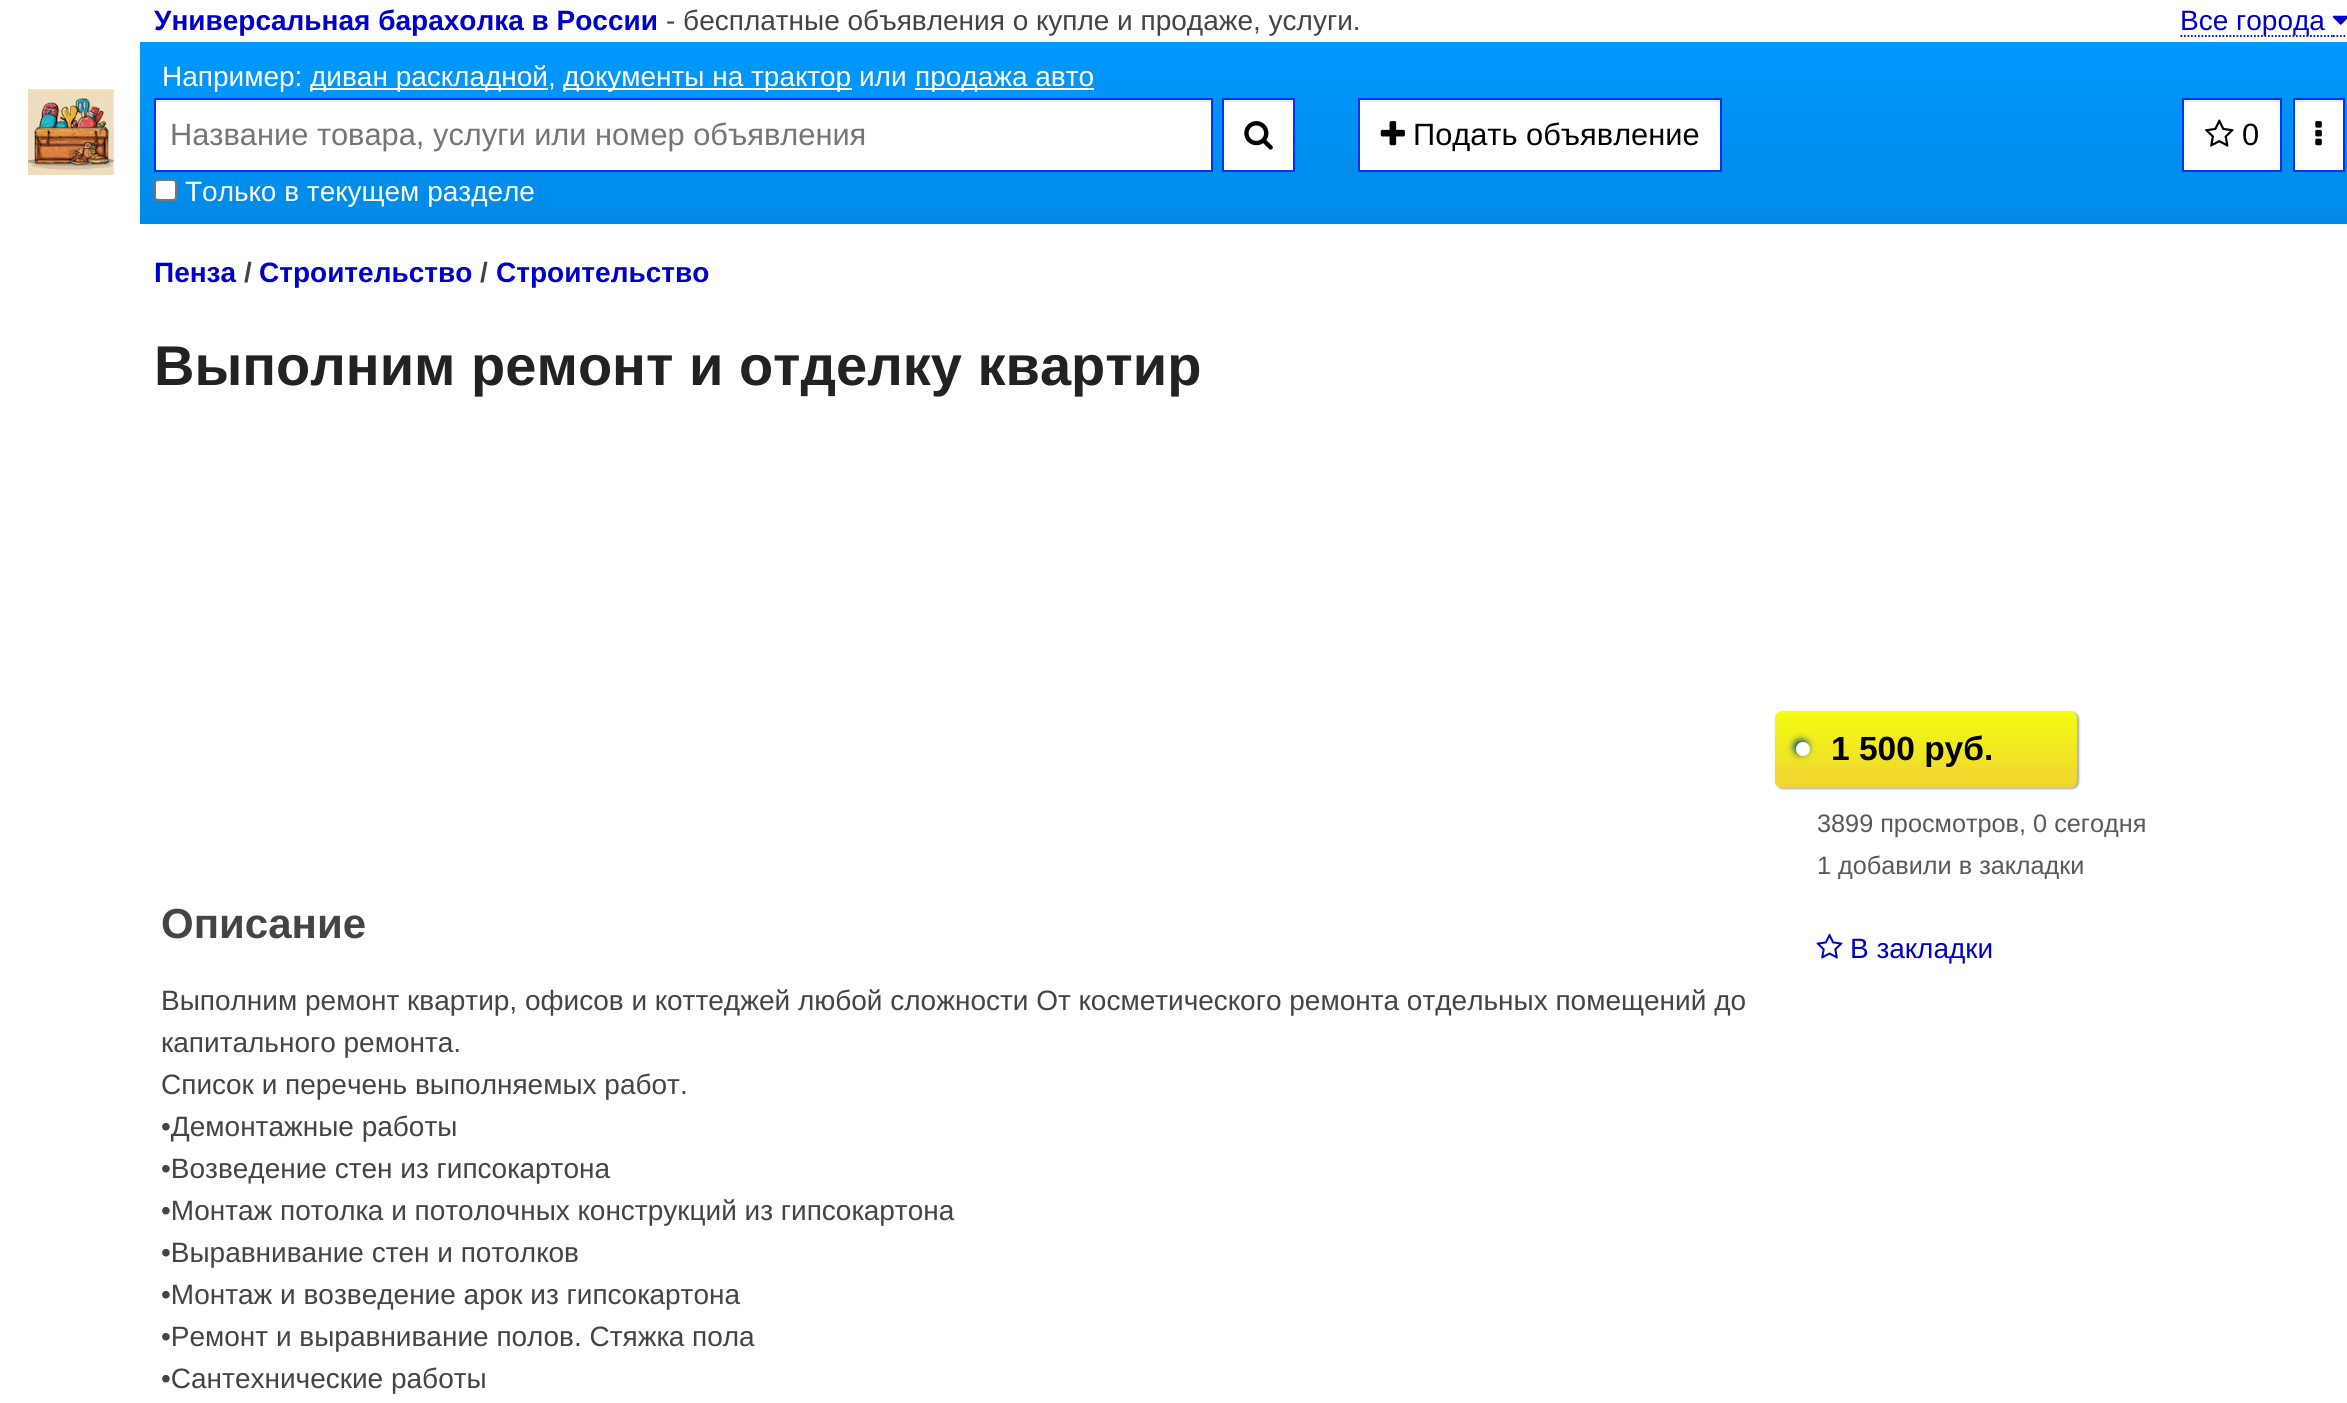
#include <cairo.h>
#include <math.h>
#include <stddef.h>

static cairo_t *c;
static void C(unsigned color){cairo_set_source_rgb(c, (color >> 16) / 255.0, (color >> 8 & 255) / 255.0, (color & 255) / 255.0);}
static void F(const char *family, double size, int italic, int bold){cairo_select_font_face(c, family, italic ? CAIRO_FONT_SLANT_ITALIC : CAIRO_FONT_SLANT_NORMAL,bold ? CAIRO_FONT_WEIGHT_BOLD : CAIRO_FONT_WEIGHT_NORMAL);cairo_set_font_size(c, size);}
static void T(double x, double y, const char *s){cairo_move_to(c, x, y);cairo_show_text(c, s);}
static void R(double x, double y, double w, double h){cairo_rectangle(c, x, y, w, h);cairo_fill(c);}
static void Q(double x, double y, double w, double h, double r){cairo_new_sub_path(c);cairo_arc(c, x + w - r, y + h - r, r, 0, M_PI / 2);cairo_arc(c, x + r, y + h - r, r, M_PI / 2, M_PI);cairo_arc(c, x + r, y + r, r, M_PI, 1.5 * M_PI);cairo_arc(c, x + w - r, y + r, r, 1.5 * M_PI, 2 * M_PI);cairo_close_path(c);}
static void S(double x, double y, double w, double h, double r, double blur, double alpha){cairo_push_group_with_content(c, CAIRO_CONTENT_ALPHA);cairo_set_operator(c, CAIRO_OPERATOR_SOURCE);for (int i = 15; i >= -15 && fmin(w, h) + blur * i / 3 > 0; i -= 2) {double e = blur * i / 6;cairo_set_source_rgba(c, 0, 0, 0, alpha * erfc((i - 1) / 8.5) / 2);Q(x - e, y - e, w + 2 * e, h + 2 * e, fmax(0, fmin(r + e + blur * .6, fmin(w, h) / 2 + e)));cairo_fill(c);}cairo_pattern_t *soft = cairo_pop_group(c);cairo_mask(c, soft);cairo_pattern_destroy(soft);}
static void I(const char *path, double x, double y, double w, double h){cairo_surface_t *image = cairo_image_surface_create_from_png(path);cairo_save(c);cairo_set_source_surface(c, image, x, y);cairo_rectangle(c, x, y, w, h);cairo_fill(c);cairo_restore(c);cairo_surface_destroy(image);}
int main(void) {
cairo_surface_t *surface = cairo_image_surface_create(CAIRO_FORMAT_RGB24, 2347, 1403);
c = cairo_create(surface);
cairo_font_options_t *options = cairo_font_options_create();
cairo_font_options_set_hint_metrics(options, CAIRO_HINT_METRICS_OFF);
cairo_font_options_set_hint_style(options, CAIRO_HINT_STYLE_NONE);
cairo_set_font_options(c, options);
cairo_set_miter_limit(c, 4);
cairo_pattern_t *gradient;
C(0xffffff);
cairo_paint(c);
F("Liberation Sans",28,0,1);
C(0x0000cc);
T(154,30,"Универсальная барахолка в России");
F("Liberation Sans",28,0,0);
C(0x444444);
T(666,30,"- бесплатные объявления о купле и продаже, услуги.");
cairo_new_path(c);
cairo_move_to(c,2180.5,36);
cairo_line_to(c,2333,36);
C(0x0000cc);
cairo_set_line_width(c,1.8);
cairo_set_dash(c,(double[]){1.75,1.75},2,0);
cairo_stroke(c);
cairo_new_path(c);
cairo_move_to(c,2333,36);
cairo_line_to(c,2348.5,36);
cairo_stroke(c);
T(2180,30,"Все города");
I("1.png",2332,15,15,10);
gradient = cairo_pattern_create_linear(0,42,0,224);
cairo_pattern_add_color_stop_rgba(gradient,0,0,0.6,1,1);
cairo_pattern_add_color_stop_rgba(gradient,1,0,0.541,0.902,1);
cairo_set_source(c,gradient);
cairo_pattern_destroy(gradient);
R(140,42,2207,182);
I("2.png",28,89,86,86);
C(0xffffff);
T(162,86,"Например:");
R(310,88,238,2);
T(310,86,"диван раскладной,");
R(564,88,288,2);
T(563,86,"документы на трактор или");
R(915,88,179,2);
T(915,86,"продажа авто");
R(156,102,1055,68);
C(0xececec);
R(156,100,1055,2);
cairo_rectangle(c,155,99,1057,72);
C(0x0033ff);
cairo_set_line_width(c,2);
cairo_set_dash(c,NULL,0,0);
cairo_stroke(c);
F("Liberation Sans",30.8,0,0);
C(0x757575);
T(170,145,"Название товара, услуги или номер объявления");
C(0xffffff);
R(1224,102,69,68);
C(0xececec);
R(1223,100,70,2);
cairo_rectangle(c,1223,99,71,72);
C(0x0033ff);
cairo_stroke(c);
I("3.png",1244,121,29,29);
C(0xffffff);
Q(155,180,21,20,3);
cairo_fill_preserve(c);
C(0x767676);
cairo_stroke(c);
F("Liberation Sans",28,0,0);
C(0xffffff);
T(185,201,"Только в текущем разделе");
R(1360,102,360,68);
C(0xececec);
R(1360,100,360,2);
cairo_rectangle(c,1359,99,362,72);
C(0x0033ff);
cairo_stroke(c);
I("4.png",1380,121,25,25);
F("Liberation Sans",30.8,0,0);
C(0x000000);
T(1413,145,"Подать объявление");
C(0xffffff);
R(2184,102,96,68);
C(0xececec);
R(2184,100,96,2);
cairo_rectangle(c,2183,99,98,72);
C(0x0033ff);
cairo_stroke(c);
I("5.png",2205,119,29,28);
C(0x000000);
T(2242,145,"0");
C(0xffffff);
R(2295,102,48,68);
C(0xececec);
R(2294,100,49,2);
cairo_rectangle(c,2294,99,50,72);
C(0x0033ff);
cairo_stroke(c);
I("6.png",2315,121,7,25);
F("Liberation Sans",28,0,1);
C(0x0000cc);
T(154,282,"Пенза");
C(0x444444);
T(244,282,"/");
C(0x0000cc);
T(259,282,"Строительство");
C(0x444444);
T(480,282,"/");
C(0x0000cc);
T(496,282,"Строительство");
F("Liberation Sans",56,0,1);
C(0x222222);
T(154,385,"Выполним ремонт и отделку квартир");
C(0xaaaaaa);
S(1776,712,303,77,7,1,1);
gradient = cairo_pattern_create_linear(1775,711,1775,788);
cairo_pattern_add_color_stop_rgba(gradient,0,0.957,0.992,0.059,1);
cairo_pattern_add_color_stop_rgba(gradient,1,0.937,0.827,0.204,1);
cairo_set_source(c,gradient);
cairo_pattern_destroy(gradient);
Q(1775,711,302,77,7);
cairo_fill(c);
C(0x004977);
S(1794,740,14,14,7,3.5,1);
C(0xffffff);
cairo_arc(c,1803,749,7,0,2 * M_PI);
cairo_fill(c);
F("Liberation Sans",33.5,0,1);
C(0x000000);
T(1831,760,"1 500 руб.");
F("Liberation Sans",25.25,0,0);
C(0x595959);
T(1817,832,"3899 просмотров, 0 сегодня");
T(1817,874,"1 добавили в закладки");
I("7.png",1816,933,27,26);
F("Liberation Sans",28,0,0);
C(0x0000cc);
T(1850,958,"В закладки");
F("Liberation Sans",42,0,1);
C(0x444444);
T(161,938,"Описание");
F("Liberation Sans",28,0,0);
T(161,1010,"Выполним ремонт квартир, офисов и коттеджей любой сложности От косметического ремонта отдельных помещений до");
T(161,1052,"капитального ремонта.");
T(161,1094,"Список и перечень выполняемых работ.");
T(161,1136,"•Демонтажные работы");
T(161,1178,"•Возведение стен из гипсокартона");
T(161,1220,"•Монтаж потолка и потолочных конструкций из гипсокартона");
T(161,1262,"•Выравнивание стен и потолков");
T(161,1304,"•Монтаж и возведение арок из гипсокартона");
T(161,1346,"•Ремонт и выравнивание полов. Стяжка пола");
T(161,1388,"•Сантехнические работы");
cairo_surface_write_to_png(surface, "o.png");
cairo_font_options_destroy(options);
cairo_destroy(c);
cairo_surface_destroy(surface);
return 0;
}
